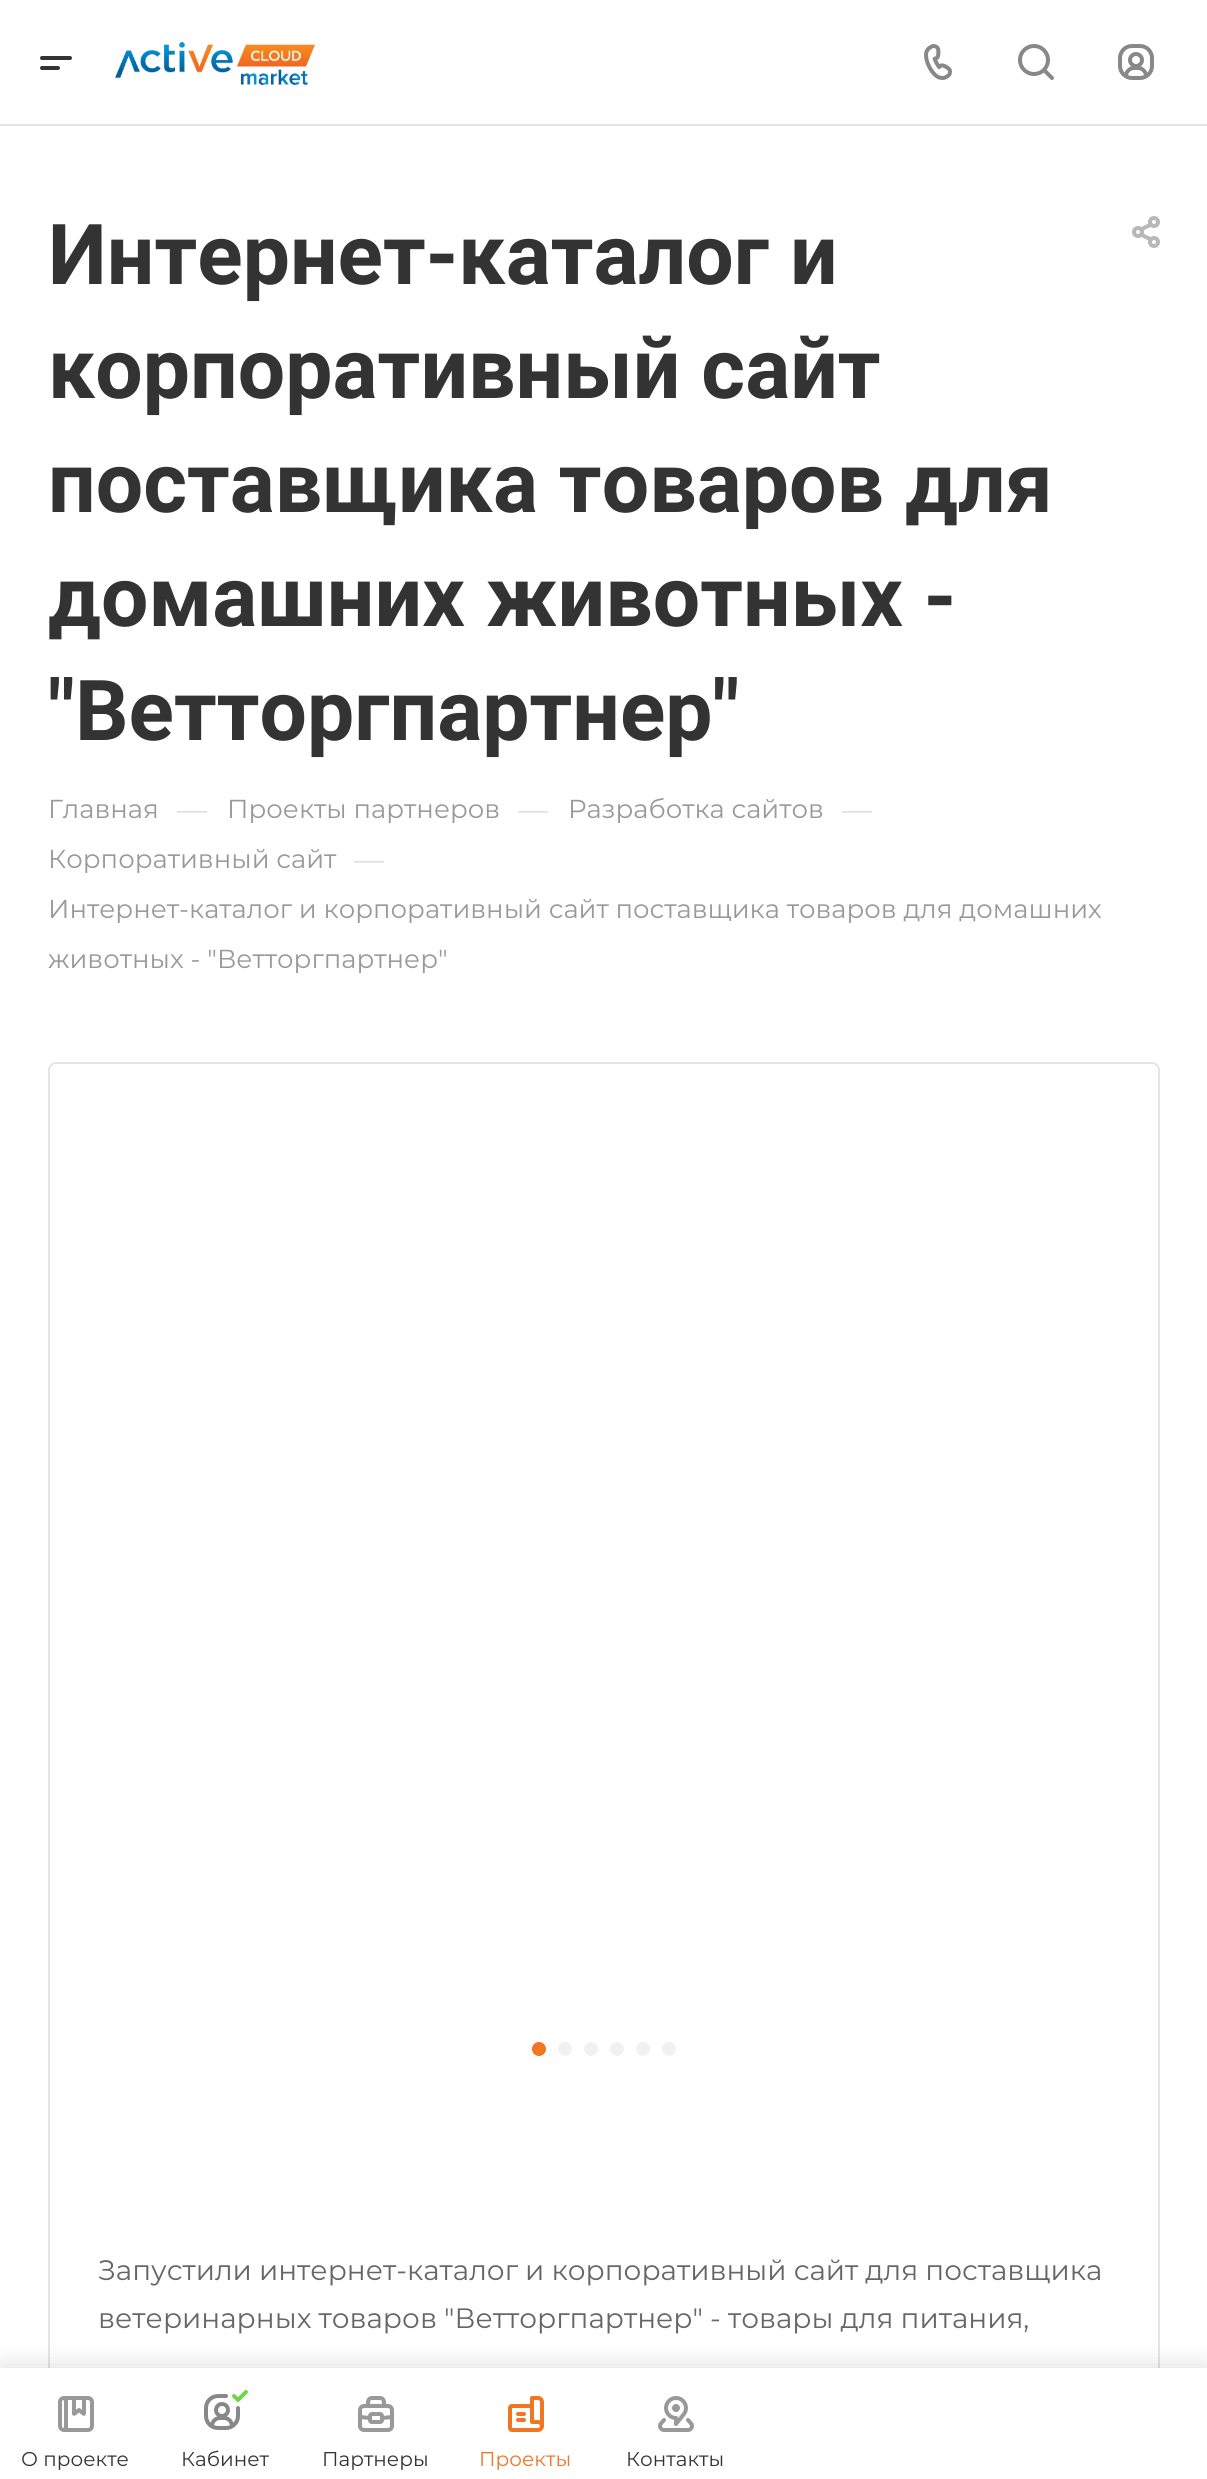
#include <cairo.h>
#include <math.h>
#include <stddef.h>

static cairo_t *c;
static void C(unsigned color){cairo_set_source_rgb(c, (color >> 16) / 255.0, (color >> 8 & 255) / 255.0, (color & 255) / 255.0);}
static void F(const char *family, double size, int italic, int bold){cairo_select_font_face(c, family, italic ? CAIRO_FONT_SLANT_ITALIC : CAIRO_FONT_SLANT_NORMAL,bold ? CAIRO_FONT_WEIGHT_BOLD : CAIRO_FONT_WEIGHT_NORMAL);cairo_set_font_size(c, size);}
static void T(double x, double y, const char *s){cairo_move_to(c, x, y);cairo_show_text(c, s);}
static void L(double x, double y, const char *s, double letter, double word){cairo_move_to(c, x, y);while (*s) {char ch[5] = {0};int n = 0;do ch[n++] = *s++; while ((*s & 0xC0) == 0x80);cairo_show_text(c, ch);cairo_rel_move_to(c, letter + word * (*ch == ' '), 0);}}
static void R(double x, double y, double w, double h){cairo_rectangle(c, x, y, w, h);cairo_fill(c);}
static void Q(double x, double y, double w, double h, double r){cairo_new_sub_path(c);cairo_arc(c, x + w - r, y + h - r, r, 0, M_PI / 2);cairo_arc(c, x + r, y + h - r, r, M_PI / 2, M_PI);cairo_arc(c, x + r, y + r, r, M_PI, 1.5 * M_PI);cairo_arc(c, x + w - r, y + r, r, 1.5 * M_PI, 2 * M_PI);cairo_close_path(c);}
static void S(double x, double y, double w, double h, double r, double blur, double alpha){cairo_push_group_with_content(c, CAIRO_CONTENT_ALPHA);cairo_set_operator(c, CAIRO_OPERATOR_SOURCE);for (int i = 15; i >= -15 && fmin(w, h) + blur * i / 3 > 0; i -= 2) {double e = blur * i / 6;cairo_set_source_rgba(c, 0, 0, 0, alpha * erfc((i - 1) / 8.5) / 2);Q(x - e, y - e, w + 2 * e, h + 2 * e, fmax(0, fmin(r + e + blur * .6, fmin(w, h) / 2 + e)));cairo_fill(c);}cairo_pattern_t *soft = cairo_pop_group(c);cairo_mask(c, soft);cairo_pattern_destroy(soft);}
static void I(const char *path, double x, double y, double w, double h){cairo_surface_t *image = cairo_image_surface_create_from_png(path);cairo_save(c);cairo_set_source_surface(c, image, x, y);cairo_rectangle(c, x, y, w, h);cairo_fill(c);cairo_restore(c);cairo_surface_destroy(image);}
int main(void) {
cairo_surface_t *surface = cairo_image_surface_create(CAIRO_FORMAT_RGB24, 1207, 2479);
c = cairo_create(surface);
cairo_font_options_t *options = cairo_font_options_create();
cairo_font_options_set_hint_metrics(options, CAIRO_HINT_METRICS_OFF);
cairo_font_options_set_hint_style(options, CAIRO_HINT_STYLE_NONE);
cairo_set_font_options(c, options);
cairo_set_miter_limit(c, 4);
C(0xffffff);
cairo_paint(c);
C(0xe5e5e5);
R(0,124,1207,2);
I("1.png",40,56,32,14);
I("2.png",115,42,200,44);
I("3.png",924,44,28,36);
I("4.png",1018,44,36,36);
I("5.png",1118,44,36,36);
F("Roboto",84,0,1);
C(0x333333);
T(48,284,"Интернет-каталог и");
T(48,398,"корпоративный сайт");
T(48,512,"поставщика товаров для");
T(48,626,"домашних животных -");
T(48,740,"\"Ветторгпартнер\"");
I("6.png",1132,216,28,32);
F("Montserrat",26,0,0);
C(0x999999);
T(48,818,"Главная");
F("Montserrat",30,0,0);
C(0xdddddd);
T(177,820,"—");
F("Montserrat",26,0,0);
C(0x999999);
T(227,818,"Проекты партнеров");
F("Montserrat",30,0,0);
C(0xdddddd);
T(518,820,"—");
F("Montserrat",26,0,0);
C(0x999999);
T(568,818,"Разработка сайтов");
F("Montserrat",30,0,0);
C(0xdddddd);
T(842,820,"—");
F("Montserrat",26,0,0);
C(0x999999);
T(48,868,"Корпоративный сайт");
F("Montserrat",30,0,0);
C(0xdddddd);
T(354,870,"—");
F("Montserrat",26,0,0);
C(0x999999);
T(48,918,"Интернет-каталог и корпоративный сайт поставщика товаров для домашних");
T(48,968,"животных - \"Ветторгпартнер\"");
Q(49,1063,1110,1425,7);
C(0xe5e5e5);
cairo_stroke(c);
C(0xf07622);
cairo_arc(c,539,2049,7,0,2 * M_PI);
cairo_fill(c);
C(0xf1f1f1);
cairo_arc(c,565,2049,7,0,2 * M_PI);
cairo_fill(c);
cairo_arc(c,591,2049,7,0,2 * M_PI);
cairo_fill(c);
cairo_arc(c,617,2049,7,0,2 * M_PI);
cairo_fill(c);
cairo_arc(c,643,2049,7,0,2 * M_PI);
cairo_fill(c);
cairo_arc(c,669,2049,7,0,2 * M_PI);
cairo_fill(c);
F("Montserrat",28,0,0);
C(0x666666);
L(98,2280,"Запустили интернет-каталог и корпоративный сайт для поставщика",0,-.25);
L(98,2328,"ветеринарных товаров \"Ветторгпартнер\" - товары для питания,",0,-.25);
C(0x000000);
S(0,2362,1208,112,0,10,.1);
C(0xffffff);
R(0,2368,1207,111);
I("7.png",58,2396,36,36);
F("Montserrat",20,0,0);
C(0x333333);
T(21,2466,"О проекте");
I("8.png",204,2390,44,40);
T(181,2466,"Кабинет");
I("9.png",358,2396,36,36);
T(322,2466,"Партнеры");
I("10.png",508,2396,36,36);
C(0xf07622);
T(479,2466,"Проекты");
I("11.png",658,2396,36,36);
C(0x333333);
T(626,2466,"Контакты");
cairo_surface_write_to_png(surface, "o.png");
cairo_font_options_destroy(options);
cairo_destroy(c);
cairo_surface_destroy(surface);
return 0;
}
